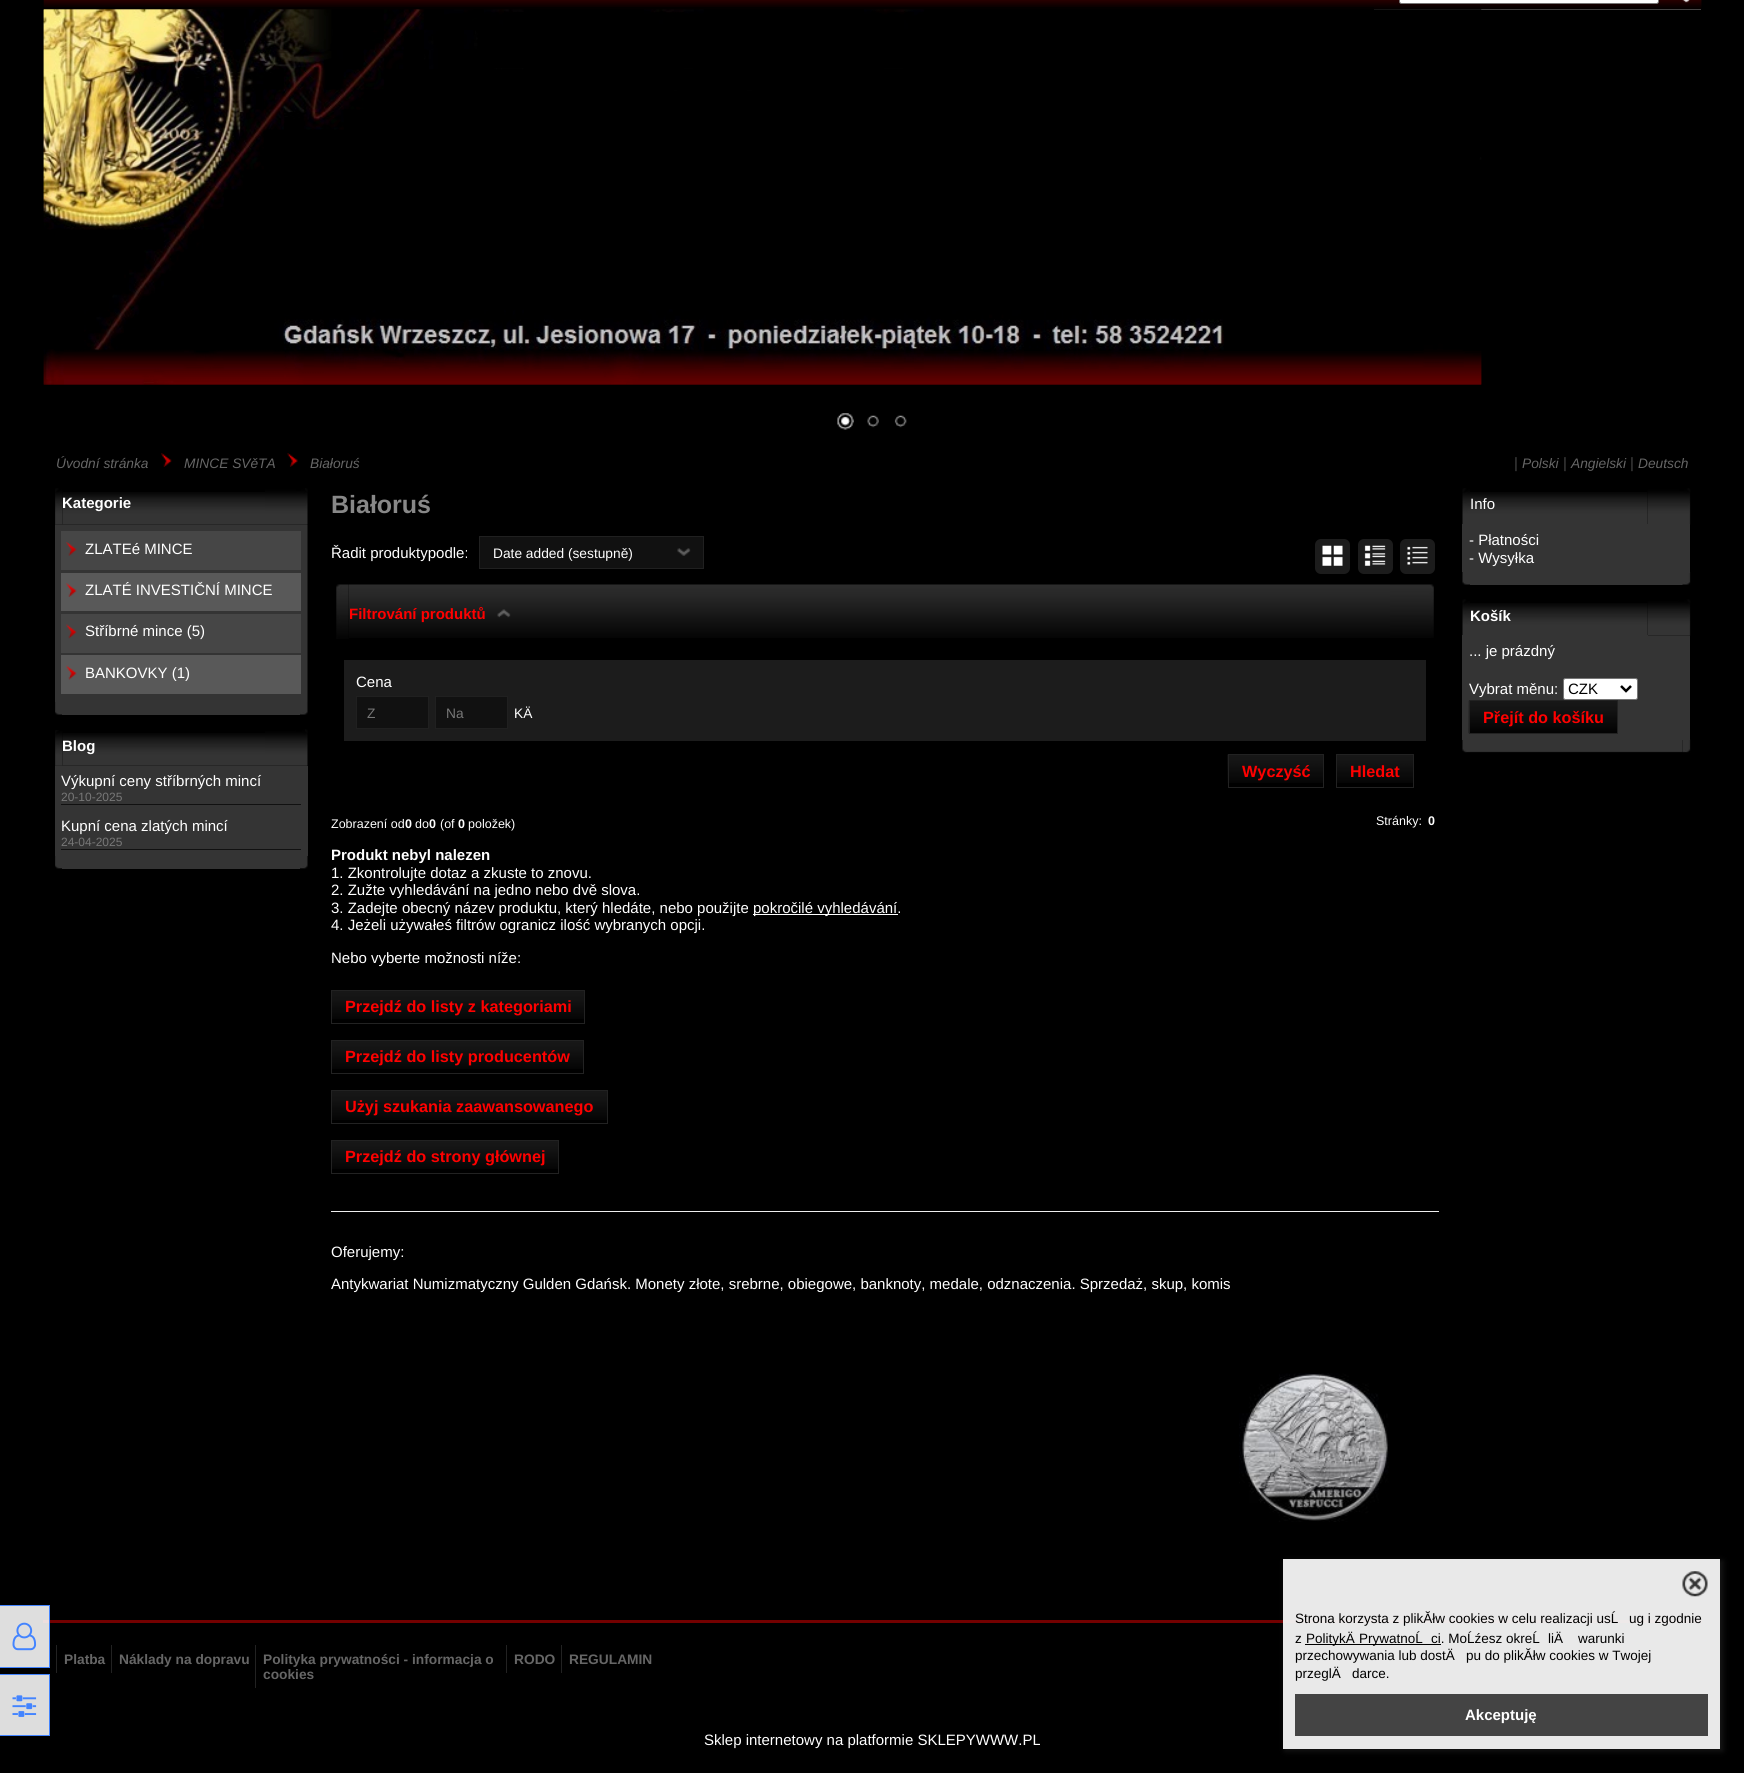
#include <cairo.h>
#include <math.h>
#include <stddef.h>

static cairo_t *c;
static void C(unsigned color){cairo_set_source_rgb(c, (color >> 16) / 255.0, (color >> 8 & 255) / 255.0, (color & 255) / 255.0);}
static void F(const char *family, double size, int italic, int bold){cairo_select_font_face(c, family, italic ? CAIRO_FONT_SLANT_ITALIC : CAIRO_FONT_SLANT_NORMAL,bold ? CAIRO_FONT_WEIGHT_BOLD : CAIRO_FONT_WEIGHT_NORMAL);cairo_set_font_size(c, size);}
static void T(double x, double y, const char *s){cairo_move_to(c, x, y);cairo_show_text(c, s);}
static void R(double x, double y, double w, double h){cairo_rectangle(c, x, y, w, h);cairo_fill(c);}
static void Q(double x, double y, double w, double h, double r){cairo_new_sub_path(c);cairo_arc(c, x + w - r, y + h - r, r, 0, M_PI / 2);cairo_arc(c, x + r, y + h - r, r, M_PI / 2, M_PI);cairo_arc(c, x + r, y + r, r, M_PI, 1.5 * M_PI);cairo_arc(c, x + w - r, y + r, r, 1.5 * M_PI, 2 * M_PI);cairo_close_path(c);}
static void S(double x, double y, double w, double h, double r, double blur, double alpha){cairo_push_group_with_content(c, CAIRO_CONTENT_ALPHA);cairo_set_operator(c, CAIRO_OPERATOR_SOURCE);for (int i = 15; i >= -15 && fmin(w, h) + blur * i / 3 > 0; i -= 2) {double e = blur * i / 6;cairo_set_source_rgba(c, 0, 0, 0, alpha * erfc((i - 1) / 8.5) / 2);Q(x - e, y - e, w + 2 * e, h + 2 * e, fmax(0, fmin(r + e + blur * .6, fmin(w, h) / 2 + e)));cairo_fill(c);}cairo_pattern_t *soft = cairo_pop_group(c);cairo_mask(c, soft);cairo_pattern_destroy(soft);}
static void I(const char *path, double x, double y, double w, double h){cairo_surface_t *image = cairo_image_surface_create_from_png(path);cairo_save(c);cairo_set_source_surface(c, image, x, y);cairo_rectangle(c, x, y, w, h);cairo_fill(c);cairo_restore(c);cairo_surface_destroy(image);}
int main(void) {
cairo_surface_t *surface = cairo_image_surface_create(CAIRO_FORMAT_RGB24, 1744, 1773);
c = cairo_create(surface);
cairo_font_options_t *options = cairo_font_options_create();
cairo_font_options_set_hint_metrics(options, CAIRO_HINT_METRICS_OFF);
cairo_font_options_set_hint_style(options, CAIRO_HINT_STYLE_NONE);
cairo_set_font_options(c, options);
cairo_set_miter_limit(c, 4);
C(0x000000);
cairo_paint(c);
C(0x730000);
R(43,1620,1659,3);
cairo_set_source_rgba(c,1,1,1,0.87);
cairo_rectangle(c,-.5,1605.5,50,62);
cairo_fill_preserve(c);
C(0x4384ff);
cairo_set_line_width(c,1);
cairo_stroke(c);
I("1.png",12,1622,25,29);
C(0xdddddd);
cairo_rectangle(c,-.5,1674.5,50,61);
cairo_fill_preserve(c);
C(0x4384ff);
cairo_stroke(c);
I("2.png",12,1695,25,22);
C(0x888888);
R(1374,9,327,1);
I("5.png",43,0,1659,7);
I("3.png",1374,0,328,10);
C(0xffffff);
Q(1399.5,-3.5,259,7,2);
cairo_fill_preserve(c);
C(0x767676);
cairo_stroke(c);
I("4.png",1682,0,8,3);
C(0x040000);
R(44,7,1330,3);
I("6.png",43,9,1439,376);
I("7.png",837,413,17,17);
I("8.png",867,415,12,13);
I("9.png",894,415,13,13);
I("10.png",43,9,1439,376);
F("Liberation Sans",13.75,1,0);
C(0x666666);
T(56,468,"Úvodní stránka");
I("11.png",161,453,11,14);
T(184,468,"MINCE SVěTA");
I("12.png",287,453,11,14);
T(310,468,"Białoruś");
F("Liberation Sans",15,0,0);
C(0x444444);
T(1514,468,"|");
F("Liberation Sans",13.75,1,0);
C(0x666666);
T(1522,468,"Polski");
F("Liberation Sans",15,0,0);
C(0x444444);
T(1563,468,"|");
F("Liberation Sans",13.75,1,0);
C(0x666666);
T(1571,468,"Angielski");
F("Liberation Sans",15,0,0);
C(0x444444);
T(1630,468,"|");
F("Liberation Sans",13.75,1,0);
C(0x666666);
T(1638,468,"Deutsch");
I("13.png",55,488,8,37);
I("14.png",62,492,203,33);
F("Liberation Sans",15,0,1);
C(0xffffff);
T(62,508,"Kategorie");
I("15.png",265,488,43,37);
C(0x343434);
R(55,525,253,178);
I("16.png",55,524,253,1);
C(0x464646);
R(61,531,240,39);
I("17.png",66,542,11,14);
F("Liberation Sans",15,0,0);
C(0xffffff);
T(85,554,"ZLATEé MINCE");
C(0x595959);
R(61,573,240,38);
I("18.png",66,583,11,14);
C(0xffffff);
T(85,595,"ZLATÉ INVESTIČNÍ MINCE");
C(0x464646);
R(61,614,240,39);
I("19.png",66,624,11,15);
C(0xffffff);
T(85,636,"Stříbrné mince (5)");
C(0x595959);
R(61,655,240,39);
I("20.png",66,665,11,15);
cairo_save(c);
cairo_rectangle(c,85,664,105,17);
cairo_clip(c);
C(0xffffff);
T(85,678,"BANKOVKY (1)");
cairo_restore(c);
I("21.png",307,524,1,178);
I("22.png",55,702,8,13);
C(0x343434);
R(62,703,238,12);
I("23.png",300,702,8,13);
I("24.png",55,730,8,36);
I("25.png",62,733,203,33);
F("Liberation Sans",15,0,1);
C(0xffffff);
T(62,751,"Blog");
I("26.png",265,729,43,37);
C(0x343434);
R(55,766,253,90);
cairo_set_source_rgba(c,0.204,0.204,0.204,0.25);
R(55,765,8,1);
C(0x111111);
R(61,804,240,1);
F("Liberation Sans",15,0,0);
C(0xffffff);
T(61,786,"Výkupní ceny stříbrných mincí");
F("Liberation Sans",12,0,0);
C(0x777777);
T(61,801,"20-10-2025");
C(0x111111);
R(61,849,240,1);
F("Liberation Sans",15,0,0);
C(0xffffff);
T(61,831,"Kupní cena zlatých mincí");
F("Liberation Sans",12,0,0);
C(0x777777);
T(61,846,"24-04-2025");
I("27.png",55,856,7,13);
C(0x343434);
R(62,856,238,13);
I("28.png",300,856,8,13);
F("Liberation Sans",25,0,1);
C(0x888888);
T(331,513,"Białoruś");
F("Liberation Sans",15,0,0);
C(0xffffff);
T(331,558,"Řadit produktypodle:");
C(0x111111);
R(480,537,223,31);
I("29.png",677,548,14,8);
cairo_rectangle(c,479.5,536.5,224,32);
C(0x202020);
cairo_stroke(c);
F("Liberation Sans",13.75,0,0);
C(0xffffff);
T(493,558,"Date added (sestupně)");
C(0x1c1c1c);
Q(1315,539,35,35,6);
cairo_fill(c);
I("30.png",1322,545,21,21);
Q(1358,539,35,35,6);
cairo_fill(c);
I("31.png",1364,545,22,21);
Q(1400,539,35,35,6);
cairo_fill(c);
I("32.png",1407,546,21,19);
I("33.png",336,584,13,55);
I("34.png",349,584,1041,54);
F("Liberation Sans",15,0,1);
C(0xff0000);
T(349,619,"Filtrování produktů");
I("35.png",497,609,14,9);
I("36.png",1390,584,44,54);
C(0x1c1c1c);
R(344,660,1082,81);
F("Liberation Sans",15,0,0);
C(0xffffff);
T(356,687,"Cena");
C(0x111111);
cairo_rectangle(c,356.5,696.5,72,32);
cairo_fill_preserve(c);
C(0x202020);
cairo_stroke(c);
F("Liberation Sans",13.75,0,0);
C(0x777777);
T(367,718,"Z");
C(0x111111);
cairo_rectangle(c,435.5,696.5,72,32);
cairo_fill_preserve(c);
C(0x202020);
cairo_stroke(c);
C(0x777777);
T(446,718,"Na");
C(0xffffff);
T(514,718,"KÄ");
I("37.png",1227,754,96,29);
cairo_rectangle(c,1228.5,754.5,95,33);
C(0x222222);
cairo_stroke(c);
F("Liberation Sans",16.25,0,1);
C(0xff0000);
T(1242,777,"Wyczyść");
I("38.png",1337,755,76,28);
cairo_rectangle(c,1336.5,754.5,77,33);
C(0x222222);
cairo_stroke(c);
C(0xff0000);
T(1350,777,"Hledat");
F("Liberation Sans",12.5,0,0);
C(0xffffff);
T(331,828,"Zobrazení od");
F("Liberation Sans",12.5,0,1);
T(405,828,"0");
F("Liberation Sans",12.5,0,0);
T(415,828,"do");
F("Liberation Sans",12.5,0,1);
T(429,828,"0");
F("Liberation Sans",12.5,0,0);
T(440,828,"(of");
F("Liberation Sans",12.5,0,1);
T(458,828,"0");
F("Liberation Sans",12.5,0,0);
T(468,828,"položek)");
T(1376,825,"Stránky:");
F("Liberation Sans",12.5,0,1);
T(1428,825,"0");
F("Liberation Sans",15,0,1);
T(331,860,"Produkt nebyl nalezen");
F("Liberation Sans",15,0,0);
T(331,878,"1. Zkontrolujte dotaz a zkuste to znovu.");
T(331,895,"2. Zužte vyhledávání na jedno nebo dvě slova.");
T(331,913,"3. Zadejte obecný název produktu, který hledáte, nebo použijte");
R(753,914,145,1);
T(753,913,"pokročilé vyhledávání.");
T(331,930,"4. Jeżeli używałeś filtrów ogranicz ilość wybranych opcji.");
T(331,963,"Nebo vyberte možnosti níže:");
I("39.png",332,991,252,28);
cairo_rectangle(c,331.5,990.5,253,33);
C(0x222222);
cairo_stroke(c);
F("Liberation Sans",16.25,0,1);
C(0xff0000);
T(345,1012,"Przejdź do listy z kategoriami");
I("40.png",332,1041,251,28);
cairo_rectangle(c,331.5,1040.5,252,33);
C(0x222222);
cairo_stroke(c);
C(0xff0000);
T(345,1062,"Przejdź do listy producentów");
I("41.png",332,1091,275,29);
cairo_rectangle(c,331.5,1090.5,276,33);
C(0x222222);
cairo_stroke(c);
C(0xff0000);
T(345,1112,"Użyj szukania zaawansowanego");
I("42.png",332,1141,226,28);
cairo_rectangle(c,331.5,1140.5,227,33);
C(0x222222);
cairo_stroke(c);
C(0xff0000);
T(345,1162,"Przejdź do strony głównej");
C(0xeeeeee);
R(331,1211,1108,1);
F("Liberation Sans",15,0,0);
C(0xffffff);
T(331,1257,"Oferujemy:");
T(331,1289,"Antykwariat Numizmatyczny Gulden Gdańsk. Monety złote, srebrne, obiegowe, banknoty, medale, odznaczenia. Sprzedaż, skup, komis");
I("43.png",1239,1373,150,149);
I("44.png",1462,488,8,36);
I("45.png",1470,492,178,32);
T(1470,509,"Info");
I("46.png",1647,488,44,37);
I("47.png",1462,572,8,13);
C(0x343434);
R(1470,573,213,12);
I("48.png",1682,572,9,13);
R(1463,572,227,1);
R(1462,524,228,48);
C(0xffffff);
T(1469,545,"- Płatności");
T(1469,563,"- Wysyłka");
I("49.png",1462,599,8,36);
I("50.png",1470,603,178,32);
F("Liberation Sans",15,0,1);
T(1470,621,"Košík");
I("51.png",1647,599,44,37);
I("54.png",1470,740,213,13);
I("55.png",1682,739,9,14);
C(0x343434);
R(1648,636,42,104);
R(1462,635,186,105);
F("Liberation Sans",15,0,0);
C(0xffffff);
T(1469,656,"... je prázdný");
T(1469,694,"Vybrat měnu:");
Q(1563.5,678.5,74,21,2);
cairo_fill_preserve(c);
C(0x767676);
cairo_stroke(c);
cairo_new_path(c);
cairo_move_to(c,1621,686);
cairo_line_to(c,1626,691);
cairo_line_to(c,1631,686);
C(0x000000);
cairo_set_line_width(c,2.5);
cairo_stroke(c);
T(1568,694,"CZK");
I("52.png",1468,700,149,34);
cairo_rectangle(c,1469.5,700.5,148,33);
C(0x222222);
cairo_set_line_width(c,1);
cairo_stroke(c);
F("Liberation Sans",16.25,0,1);
C(0xff0000);
T(1483,723,"Přejít do košíku");
I("53.png",1462,740,8,13);
C(0x222222);
R(56,1645,1,28);
F("Liberation Sans",13.75,0,1);
C(0x666666);
T(64,1664,"Platba");
C(0x222222);
R(111,1645,1,28);
C(0x666666);
T(119,1664,"Náklady na dopravu");
C(0x222222);
R(255,1645,1,43);
C(0x666666);
T(263,1664,"Polityka prywatności - informacja o");
T(263,1679,"cookies");
C(0x222222);
R(506,1645,1,28);
C(0x666666);
T(514,1664,"RODO");
C(0x222222);
R(561,1645,1,28);
C(0x666666);
T(569,1664,"REGULAMIN");
F("Liberation Sans",15,0,0);
C(0xffffff);
T(704,1745,"Sklep internetowy na platformie SKLEPYWWW.PL");
cairo_save(c);
cairo_set_fill_rule(c,CAIRO_FILL_RULE_EVEN_ODD);
cairo_new_path(c);
cairo_move_to(c,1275,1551);
cairo_line_to(c,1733,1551);
cairo_line_to(c,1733,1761);
cairo_line_to(c,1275,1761);
cairo_close_path(c);
cairo_move_to(c,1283,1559);
cairo_line_to(c,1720,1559);
cairo_line_to(c,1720,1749);
cairo_line_to(c,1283,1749);
cairo_close_path(c);
cairo_clip(c);
C(0x555555);
S(1285,1561,438,190,0,3,.27);
cairo_restore(c);
cairo_set_source_rgba(c,0.961,0.961,0.961,0.95);
R(1283,1559,437,190);
I("56.png",1682,1571,26,26);
F("Liberation Sans",13.5,0,0);
C(0x000000);
T(1295,1623,"Strona korzysta z plikĂłw cookies w celu realizacji usĹ");
T(1629,1623,"ug i zgodnie");
T(1295,1643,"z");
R(1305,1644,136,1);
T(1306,1643,"PolitykÄ");
T(1359,1643,"PrywatnoĹ");
T(1431,1643,"ci. MoĹźesz okreĹ");
T(1548,1643,"liÄ");
T(1578,1643,"warunki");
T(1295,1660,"przechowywania lub dostÄ");
T(1466,1660,"pu do plikĂłw cookies w Twojej");
T(1295,1678,"przeglÄ");
T(1352,1678,"darce.");
C(0x444444);
R(1295,1694,413,42);
F("Liberation Sans",15,0,1);
C(0xffffff);
T(1465,1720,"Akceptuję");
cairo_surface_write_to_png(surface, "o.png");
cairo_font_options_destroy(options);
cairo_destroy(c);
cairo_surface_destroy(surface);
return 0;
}
